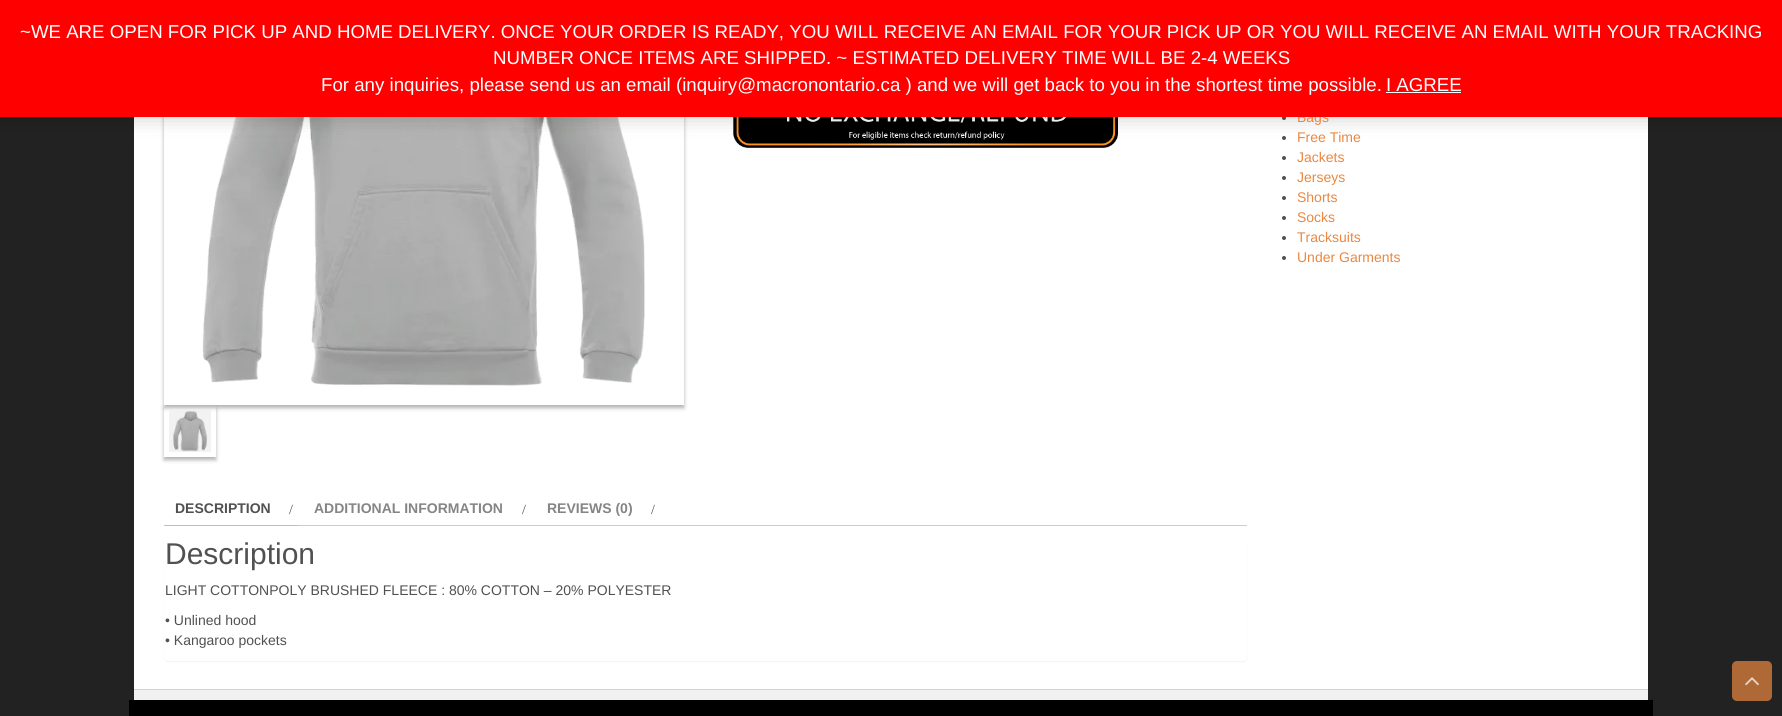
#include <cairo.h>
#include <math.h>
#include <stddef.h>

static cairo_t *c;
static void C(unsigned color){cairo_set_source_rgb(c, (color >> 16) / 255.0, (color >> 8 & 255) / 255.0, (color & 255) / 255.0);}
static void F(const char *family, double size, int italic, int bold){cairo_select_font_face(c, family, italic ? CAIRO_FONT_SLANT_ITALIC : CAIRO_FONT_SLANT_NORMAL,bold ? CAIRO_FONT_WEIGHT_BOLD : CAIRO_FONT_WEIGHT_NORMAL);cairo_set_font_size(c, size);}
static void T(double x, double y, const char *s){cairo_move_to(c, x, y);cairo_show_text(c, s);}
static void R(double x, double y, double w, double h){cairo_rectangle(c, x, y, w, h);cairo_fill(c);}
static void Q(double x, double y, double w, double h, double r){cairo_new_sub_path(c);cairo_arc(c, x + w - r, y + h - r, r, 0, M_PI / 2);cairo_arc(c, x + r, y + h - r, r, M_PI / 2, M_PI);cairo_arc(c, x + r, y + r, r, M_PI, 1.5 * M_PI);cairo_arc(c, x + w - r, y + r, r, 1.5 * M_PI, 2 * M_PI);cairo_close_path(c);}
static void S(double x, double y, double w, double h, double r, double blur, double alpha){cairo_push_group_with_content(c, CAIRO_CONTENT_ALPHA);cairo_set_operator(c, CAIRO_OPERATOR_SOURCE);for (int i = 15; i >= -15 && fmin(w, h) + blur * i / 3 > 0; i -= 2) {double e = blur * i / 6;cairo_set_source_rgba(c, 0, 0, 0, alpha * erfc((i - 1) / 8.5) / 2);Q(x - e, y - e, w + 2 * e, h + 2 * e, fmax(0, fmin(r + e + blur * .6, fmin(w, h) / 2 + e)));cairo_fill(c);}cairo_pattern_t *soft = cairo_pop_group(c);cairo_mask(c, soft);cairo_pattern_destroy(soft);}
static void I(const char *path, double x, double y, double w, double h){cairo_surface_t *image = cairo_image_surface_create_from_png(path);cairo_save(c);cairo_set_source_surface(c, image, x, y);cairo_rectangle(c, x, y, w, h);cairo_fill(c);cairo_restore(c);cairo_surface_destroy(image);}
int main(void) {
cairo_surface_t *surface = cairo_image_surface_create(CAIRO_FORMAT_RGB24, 1782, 716);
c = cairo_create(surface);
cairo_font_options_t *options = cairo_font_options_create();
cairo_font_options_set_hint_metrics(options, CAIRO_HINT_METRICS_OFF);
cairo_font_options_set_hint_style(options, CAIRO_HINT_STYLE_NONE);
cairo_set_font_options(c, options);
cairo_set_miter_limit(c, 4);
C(0x222222);
cairo_paint(c);
C(0xffffff);
R(134,117,1514,572);
C(0x515151);
cairo_arc(c,1284,118,2,0,2 * M_PI);
cairo_fill(c);
cairo_arc(c,1284,138,2,0,2 * M_PI);
cairo_fill(c);
cairo_save(c);
cairo_set_fill_rule(c,CAIRO_FILL_RULE_EVEN_ODD);
cairo_new_path(c);
cairo_move_to(c,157,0);
cairo_line_to(c,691,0);
cairo_line_to(c,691,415);
cairo_line_to(c,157,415);
cairo_close_path(c);
cairo_move_to(c,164,-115);
cairo_line_to(c,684,-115);
cairo_line_to(c,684,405);
cairo_line_to(c,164,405);
cairo_close_path(c);
cairo_clip(c);
C(0xb3b2b2);
S(164,-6,520,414,0,2,1);
cairo_restore(c);
I("1.png",202,117,443,269);
I("3.png",733,117,385,31);
C(0x000000);
S(0,1,1782,117,0,9.5,.2);
F("Liberation Sans",14,0,0);
C(0xea8740);
T(1297,122,"Bags");
C(0xff0000);
R(0,0,1782,117);
F("Liberation Sans",18.67,0,0);
C(0xffffff);
T(20,38,"~WE ARE OPEN FOR PICK UP AND HOME DELIVERY. ONCE YOUR ORDER IS READY, YOU WILL RECEIVE AN EMAIL FOR YOUR PICK UP OR YOU WILL RECEIVE AN EMAIL WITH YOUR TRACKING");
T(493,64,"NUMBER ONCE ITEMS ARE SHIPPED. ~ ESTIMATED DELIVERY TIME WILL BE 2-4 WEEKS");
T(321,91,"For any inquiries, please send us an email (inquiry@macronontario.ca ) and we will get back to you in the shortest time possible.");
T(1386,91,"I AGREE");
C(0xfcfbfe);
R(1386,92,75,1);
F("Liberation Sans",14,0,0);
C(0xea8740);
T(1297,142,"Free Time");
C(0x515151);
cairo_new_path(c);
cairo_arc(c,1284,158,2,0,2 * M_PI);
cairo_fill(c);
C(0xea8740);
T(1297,162,"Jackets");
C(0x515151);
cairo_new_path(c);
cairo_arc(c,1284,178,2,0,2 * M_PI);
cairo_fill(c);
C(0xea8740);
T(1297,182,"Jerseys");
C(0x515151);
cairo_new_path(c);
cairo_arc(c,1284,198,2,0,2 * M_PI);
cairo_fill(c);
C(0xea8740);
T(1297,202,"Shorts");
C(0x515151);
cairo_new_path(c);
cairo_arc(c,1284,218,2,0,2 * M_PI);
cairo_fill(c);
C(0xea8740);
T(1297,222,"Socks");
C(0x515151);
cairo_new_path(c);
cairo_arc(c,1284,238,2,0,2 * M_PI);
cairo_fill(c);
C(0xea8740);
T(1297,242,"Tracksuits");
C(0x515151);
cairo_new_path(c);
cairo_arc(c,1284,258,2,0,2 * M_PI);
cairo_fill(c);
C(0xea8740);
T(1297,262,"Under Garments");
cairo_save(c);
cairo_set_fill_rule(c,CAIRO_FILL_RULE_EVEN_ODD);
cairo_new_path(c);
cairo_move_to(c,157,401);
cairo_line_to(c,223,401);
cairo_line_to(c,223,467);
cairo_line_to(c,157,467);
cairo_close_path(c);
cairo_move_to(c,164,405);
cairo_line_to(c,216,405);
cairo_line_to(c,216,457);
cairo_line_to(c,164,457);
cairo_close_path(c);
cairo_clip(c);
C(0xb3b2b2);
S(164,408,52,52,0,2,1);
cairo_restore(c);
I("2.png",169,410,42,42);
C(0xcfc8d8);
R(164,525,1083,1);
C(0xf4c700);
cairo_new_path(c);
cairo_move_to(c,299,526);
cairo_line_to(c,164,526);
cairo_line_to(c,165,525);
cairo_line_to(c,298,525);
cairo_close_path(c);
cairo_fill(c);
F("Liberation Sans",14,0,1);
C(0x515151);
T(175,513,"DESCRIPTION");
F("Liberation Serif",14,0,0);
T(289,514,"/");
F("Liberation Sans",14,0,1);
C(0x858585);
T(314,513,"ADDITIONAL INFORMATION");
F("Liberation Serif",14,0,0);
C(0x515151);
T(522,514,"/");
F("Liberation Sans",14,0,1);
C(0x858585);
T(547,513,"REVIEWS (0)");
F("Liberation Serif",14,0,0);
C(0x515151);
T(651,514,"/");
C(0x000000);
S(164,537,1083,125,4,.5,.05);
C(0xffffff);
Q(164,536,1083,125,4);
cairo_fill(c);
F("Liberation Sans",30,0,0);
C(0x515151);
T(165,564,"Description");
F("Liberation Sans",14,0,0);
T(165,595,"LIGHT COTTONPOLY BRUSHED FLEECE : 80% COTTON – 20% POLYESTER");
T(165,625,"• Unlined hood");
T(165,645,"• Kangaroo pockets");
C(0xf1f1f1);
R(134,690,1514,10);
C(0xd3d3d3);
R(134,689,1514,1);
C(0x000000);
R(129,700,1524,16);
C(0xae6937);
Q(1732,661,40,40,5);
cairo_fill(c);
I("4.png",1745,677,14,9);
cairo_surface_write_to_png(surface, "o.png");
cairo_font_options_destroy(options);
cairo_destroy(c);
cairo_surface_destroy(surface);
return 0;
}
